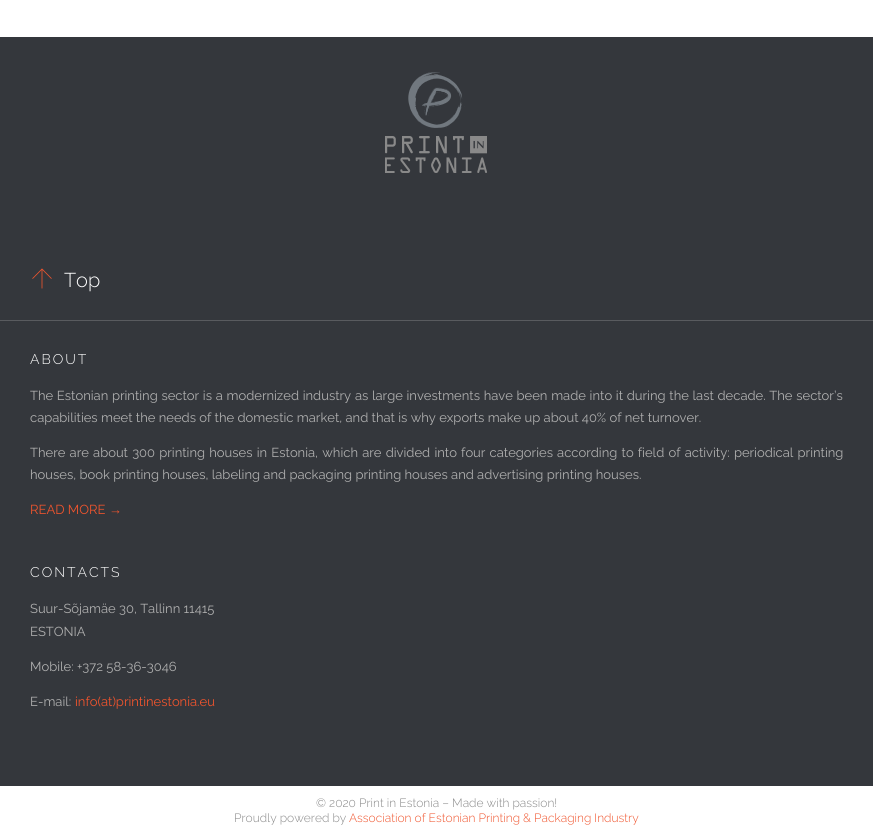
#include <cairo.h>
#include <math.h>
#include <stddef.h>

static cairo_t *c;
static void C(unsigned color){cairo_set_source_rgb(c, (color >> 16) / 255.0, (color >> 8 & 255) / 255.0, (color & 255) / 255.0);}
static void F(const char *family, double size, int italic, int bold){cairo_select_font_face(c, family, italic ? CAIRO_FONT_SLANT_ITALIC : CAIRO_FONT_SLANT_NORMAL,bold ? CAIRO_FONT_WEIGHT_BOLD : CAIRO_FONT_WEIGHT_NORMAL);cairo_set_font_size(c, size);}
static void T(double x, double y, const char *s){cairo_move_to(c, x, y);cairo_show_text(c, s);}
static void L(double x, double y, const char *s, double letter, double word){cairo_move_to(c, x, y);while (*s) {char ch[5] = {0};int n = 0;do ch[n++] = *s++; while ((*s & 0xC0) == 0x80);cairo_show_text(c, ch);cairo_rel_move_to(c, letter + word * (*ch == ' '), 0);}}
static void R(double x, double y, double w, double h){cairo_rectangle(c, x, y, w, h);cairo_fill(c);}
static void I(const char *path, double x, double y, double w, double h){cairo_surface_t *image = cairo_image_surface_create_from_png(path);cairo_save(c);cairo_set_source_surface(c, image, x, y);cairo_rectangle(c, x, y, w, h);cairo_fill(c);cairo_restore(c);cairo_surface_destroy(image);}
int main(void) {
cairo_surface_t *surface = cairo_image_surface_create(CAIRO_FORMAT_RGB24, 873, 835);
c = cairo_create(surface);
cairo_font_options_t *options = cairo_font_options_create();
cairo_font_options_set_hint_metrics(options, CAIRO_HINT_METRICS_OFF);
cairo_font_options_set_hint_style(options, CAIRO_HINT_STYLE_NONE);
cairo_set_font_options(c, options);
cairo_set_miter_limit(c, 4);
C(0xffffff);
cairo_paint(c);
C(0x34373c);
R(0,37,873,749);
C(0x595b5f);
R(0,320,873,1);
I("1.png",385,72,102,101);
I("2.png",32,268,20,21);
F("Raleway Light",20,0,0);
C(0xffffff);
T(64,287,"Top");
F("Raleway Light",14,0,0);
L(30,364,"ABOUT",2,0);
F("Raleway",13,0,0);
C(0xafafaf);
L(30,400,"The Estonian printing sector is a modernized industry as large investments have been made into it during the last decade. The sector’s",0,.4);
T(30,422,"capabilities meet the needs of the domestic market, and that is why exports make up about 40% of net turnover.");
L(30,457,"There are about 300 printing houses in Estonia, which are divided into four categories according to field of activity: periodical printing",0,.9);
T(30,479,"houses, book printing houses, labeling and packaging printing houses and advertising printing houses.");
C(0xf0542d);
T(30,514,"READ MORE");
F("Liberation Serif",13,0,0);
T(109,514,"→");
F("Raleway Light",14,0,0);
C(0xffffff);
L(30,577,"CONTACTS",2,0);
F("Raleway",13,0,0);
C(0xafafaf);
T(30,613,"Suur-Sõjamäe 30, Tallinn 11415");
T(30,636,"ESTONIA");
T(30,671,"Mobile: +372 58-36-3046");
T(30,706,"E-mail:");
C(0xf0542d);
T(75,706,"info(at)printinestonia.eu");
F("Raleway Light",12,0,0);
C(0x898989);
T(316,807,"© 2020 Print in Estonia – Made with passion!");
T(234,822,"Proudly powered by");
C(0xf0542d);
T(349,822,"Association of Estonian Printing & Packaging Industry");
cairo_surface_write_to_png(surface, "o.png");
cairo_font_options_destroy(options);
cairo_destroy(c);
cairo_surface_destroy(surface);
return 0;
}
